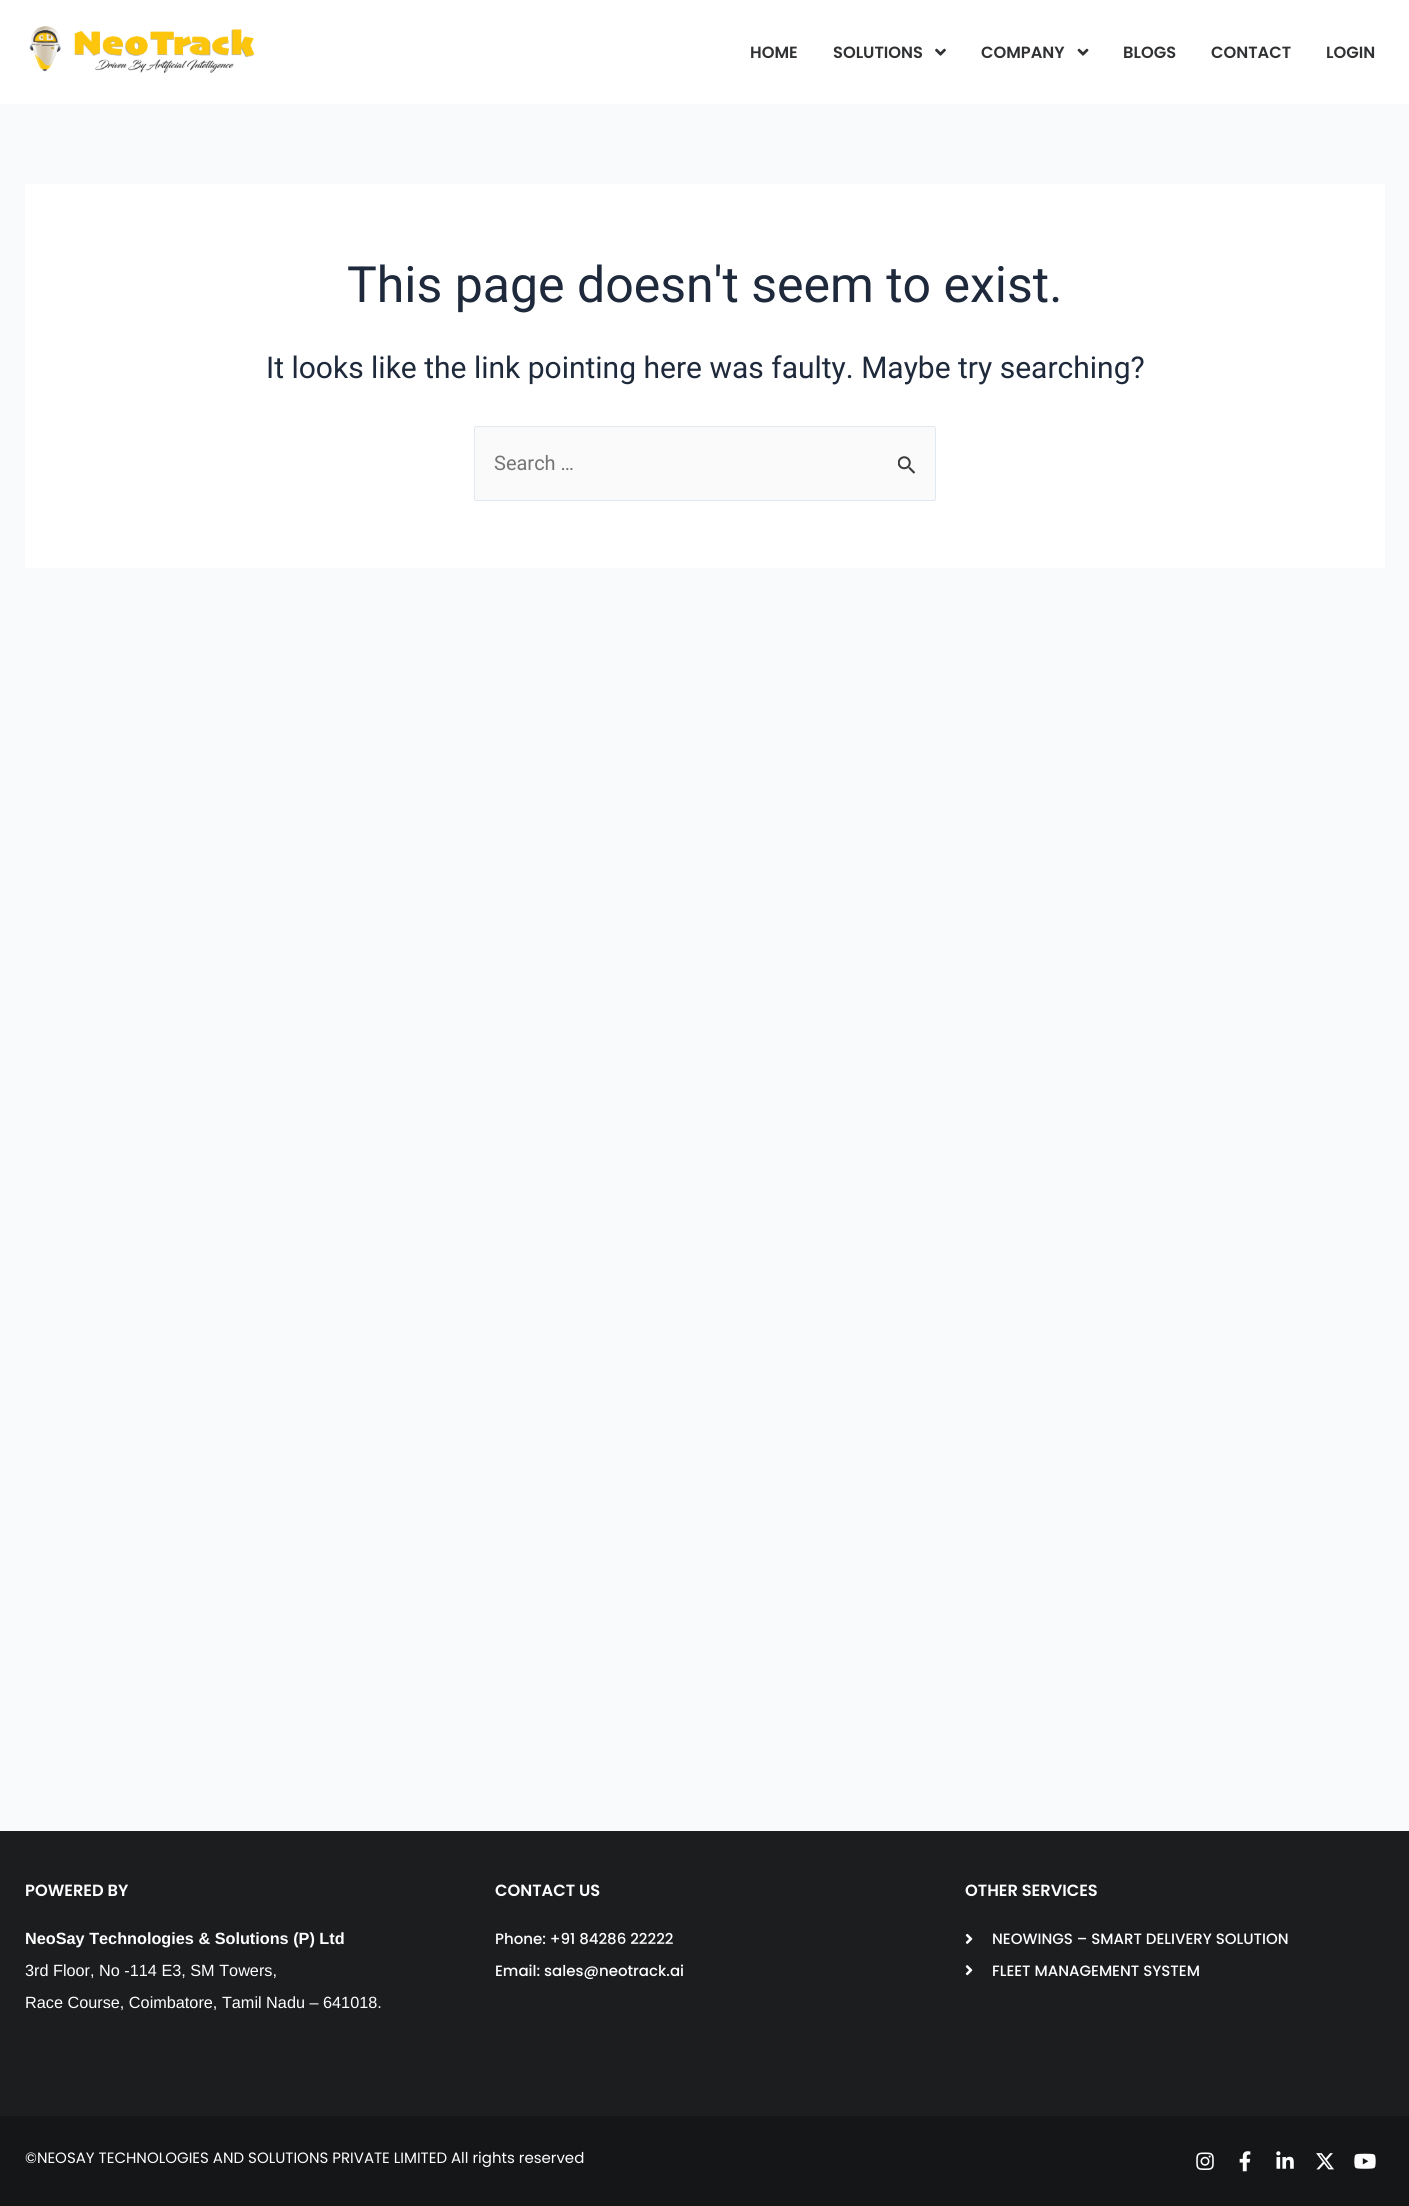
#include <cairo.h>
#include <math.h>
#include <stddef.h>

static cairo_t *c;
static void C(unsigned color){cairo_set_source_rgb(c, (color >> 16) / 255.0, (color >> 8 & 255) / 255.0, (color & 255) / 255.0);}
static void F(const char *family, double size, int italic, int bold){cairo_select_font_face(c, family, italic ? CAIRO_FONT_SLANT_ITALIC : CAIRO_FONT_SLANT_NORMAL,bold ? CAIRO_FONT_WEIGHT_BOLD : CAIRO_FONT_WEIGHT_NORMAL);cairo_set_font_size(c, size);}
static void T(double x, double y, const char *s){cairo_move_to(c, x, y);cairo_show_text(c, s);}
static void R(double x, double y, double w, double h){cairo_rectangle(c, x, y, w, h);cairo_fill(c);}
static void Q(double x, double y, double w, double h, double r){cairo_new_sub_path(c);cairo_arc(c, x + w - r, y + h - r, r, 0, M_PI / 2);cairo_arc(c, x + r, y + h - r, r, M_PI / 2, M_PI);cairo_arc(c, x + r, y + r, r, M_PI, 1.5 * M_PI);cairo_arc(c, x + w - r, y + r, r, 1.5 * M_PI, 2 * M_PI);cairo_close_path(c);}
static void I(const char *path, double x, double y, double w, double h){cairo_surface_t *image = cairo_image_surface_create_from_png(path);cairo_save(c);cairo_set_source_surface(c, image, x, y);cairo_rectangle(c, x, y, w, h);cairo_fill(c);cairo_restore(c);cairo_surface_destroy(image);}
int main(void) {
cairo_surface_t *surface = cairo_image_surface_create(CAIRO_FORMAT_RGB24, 1409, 2206);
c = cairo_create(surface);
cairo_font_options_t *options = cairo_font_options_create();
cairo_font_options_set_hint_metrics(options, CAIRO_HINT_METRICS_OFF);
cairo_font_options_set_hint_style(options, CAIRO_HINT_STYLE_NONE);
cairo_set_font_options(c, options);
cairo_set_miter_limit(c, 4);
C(0xf9fafb);
cairo_paint(c);
C(0xffffff);
R(0,0,1409,104);
I("1.png",29,26,226,48);
F("Poppins SemiBold",16.25,0,0);
C(0x303133);
T(750,58,"HOME");
T(833,58,"SOLUTIONS");
I("2.png",935,48,11,8);
T(981,58,"COMPANY");
I("3.png",1077,48,12,8);
T(1123,58,"BLOGS");
T(1211,58,"CONTACT");
T(1326,58,"LOGIN");
C(0xffffff);
R(25,184,1360,384);
F("Roboto",50,0,0);
C(0x1e293b);
T(347,302,"This page doesn't seem to exist.");
F("Roboto",30,0,0);
T(266,378,"It looks like the link pointing here was faulty. Maybe try searching?");
C(0xfafafa);
Q(474.5,426.5,461,74,2);
cairo_fill_preserve(c);
C(0xe2e8f0);
cairo_set_line_width(c,1);
cairo_stroke(c);
F("Roboto",20,0,0);
C(0x757575);
T(494,470,"Search …");
I("4.png",898,456,17,18);
C(0x1b1d1f);
R(0,1831,1409,285);
F("Poppins SemiBold",16.25,0,0);
C(0xffffff);
T(25,1896,"POWERED BY");
F("Liberation Sans",16.25,0,1);
T(25,1944,"NeoSay Technologies & Solutions (P) Ltd");
F("Liberation Sans",16.25,0,0);
T(25,1976,"3rd Floor, No -114 E3, SM Towers,");
T(25,2008,"Race Course, Coimbatore, Tamil Nadu – 641018.");
F("Poppins SemiBold",16.25,0,0);
T(495,1896,"CONTACT US");
F("Poppins Medium",15,0,0);
T(495,1944,"Phone: +91 84286 22222");
T(495,1976,"Email: sales@neotrack.ai");
F("Poppins SemiBold",16.25,0,0);
T(965,1896,"OTHER SERVICES");
I("5.png",965,1933,8,11);
F("Poppins Medium",15,0,0);
T(992,1944,"NEOWINGS – SMART DELIVERY SOLUTION");
I("6.png",965,1965,8,11);
T(992,1976,"FLEET MANAGEMENT SYSTEM");
C(0x141618);
R(0,2116,1409,90);
F("Poppins",15,0,0);
C(0xffffff);
T(25,2163,"©NEOSAY TECHNOLOGIES AND SOLUTIONS PRIVATE LIMITED All rights reserved");
I("7.png",1196,2152,18,18);
I("8.png",1239,2151,12,21);
I("9.png",1276,2151,18,18);
I("10.png",1316,2153,18,17);
I("11.png",1354,2153,22,16);
cairo_surface_write_to_png(surface, "o.png");
cairo_font_options_destroy(options);
cairo_destroy(c);
cairo_surface_destroy(surface);
return 0;
}
